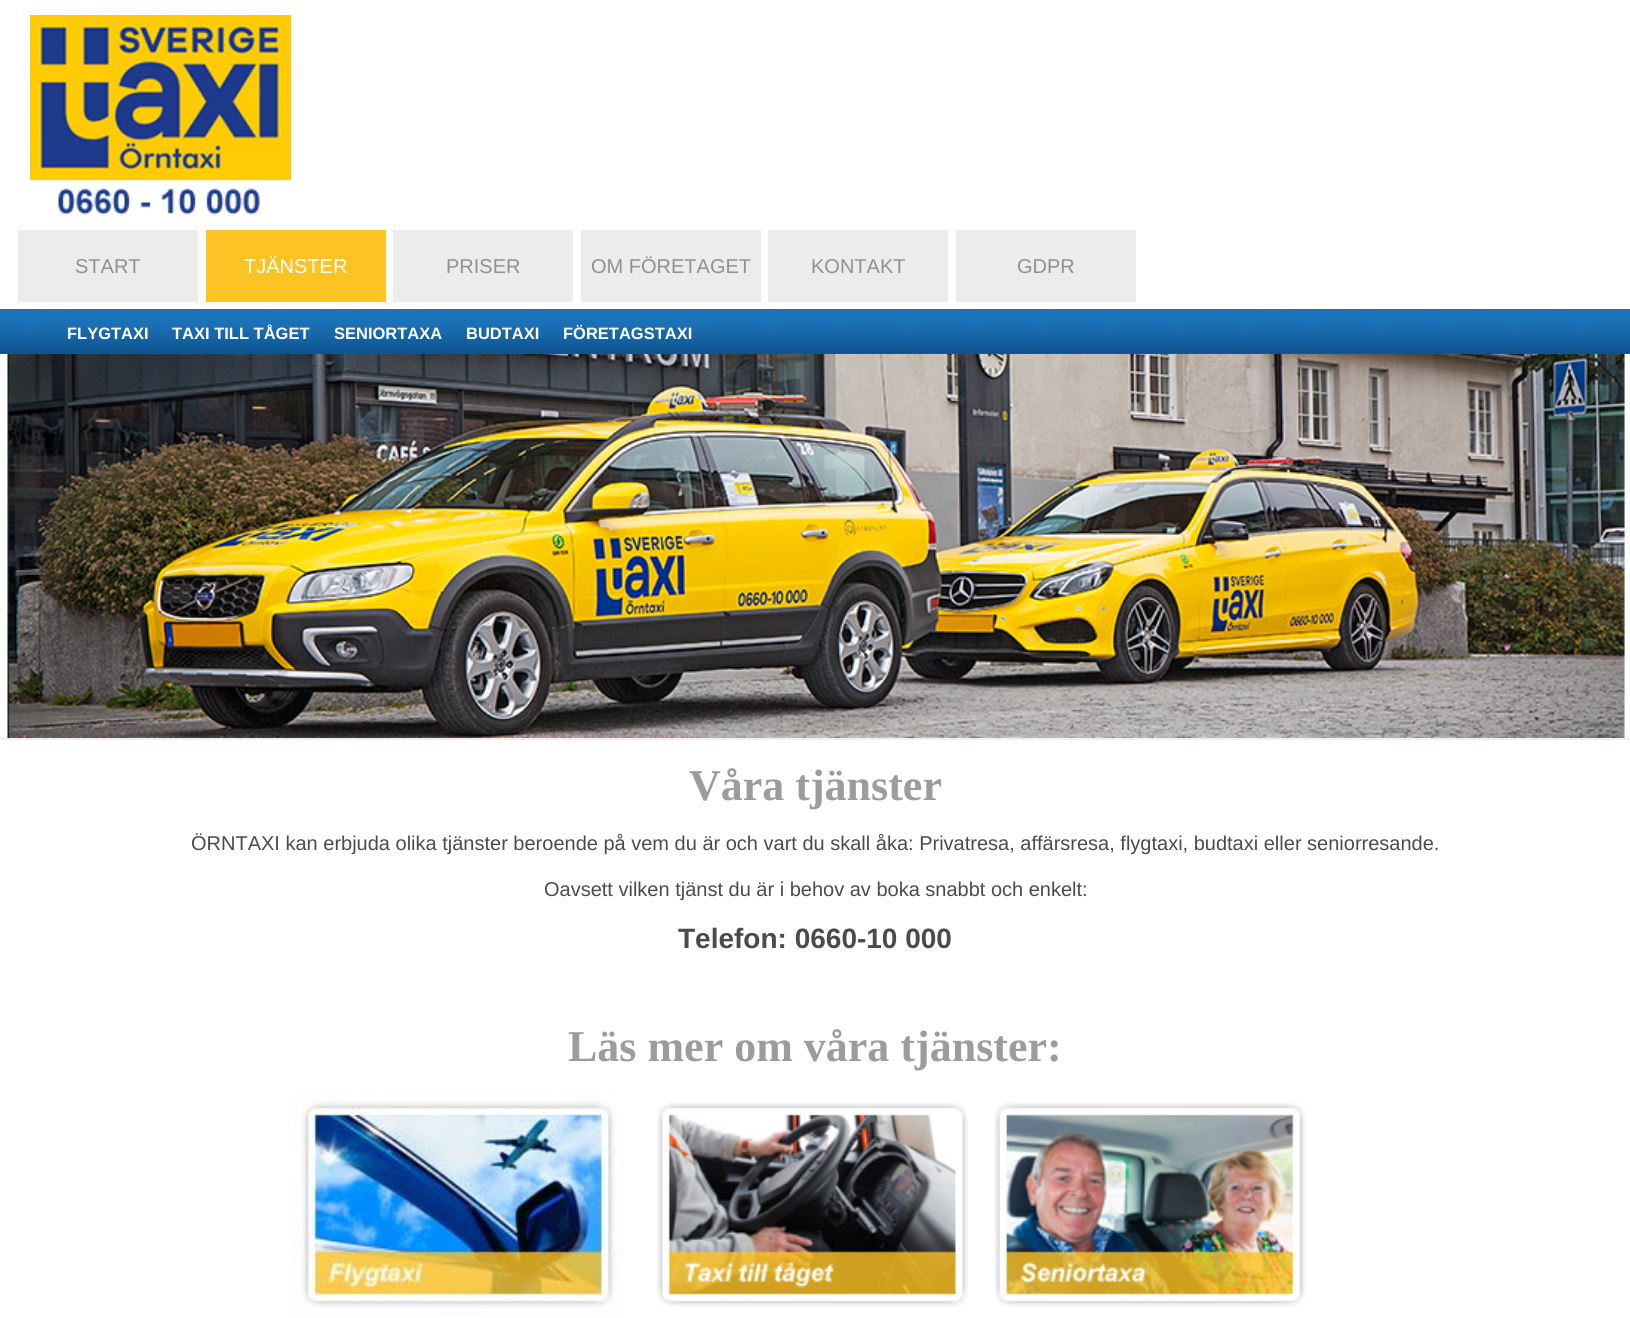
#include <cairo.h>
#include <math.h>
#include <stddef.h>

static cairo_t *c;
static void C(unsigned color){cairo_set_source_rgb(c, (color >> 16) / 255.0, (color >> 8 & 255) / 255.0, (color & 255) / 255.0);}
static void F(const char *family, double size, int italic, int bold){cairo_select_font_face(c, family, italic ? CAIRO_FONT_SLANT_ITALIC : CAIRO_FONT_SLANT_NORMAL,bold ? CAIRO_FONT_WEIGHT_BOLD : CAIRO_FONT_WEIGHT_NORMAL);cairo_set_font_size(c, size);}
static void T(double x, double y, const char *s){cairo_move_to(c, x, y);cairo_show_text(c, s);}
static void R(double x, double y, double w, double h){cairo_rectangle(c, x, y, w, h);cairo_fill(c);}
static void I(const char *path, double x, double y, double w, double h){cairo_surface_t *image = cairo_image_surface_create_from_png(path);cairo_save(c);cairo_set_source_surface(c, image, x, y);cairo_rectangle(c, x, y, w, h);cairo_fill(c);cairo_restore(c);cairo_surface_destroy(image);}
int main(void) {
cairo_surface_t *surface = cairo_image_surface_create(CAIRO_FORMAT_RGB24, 1630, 1318);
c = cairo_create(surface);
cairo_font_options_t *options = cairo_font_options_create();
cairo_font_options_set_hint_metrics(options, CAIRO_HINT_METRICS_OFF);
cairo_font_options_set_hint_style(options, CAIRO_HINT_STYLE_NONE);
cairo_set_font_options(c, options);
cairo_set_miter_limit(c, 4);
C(0xefefef);
cairo_paint(c);
C(0xffffff);
R(0,0,1630,305);
I("1.png",30,15,261,200);
C(0xececec);
R(18,230,180,72);
F("Liberation Sans",20,0,0);
C(0x909090);
T(75,273,"START");
C(0xfdc324);
R(206,230,180,72);
C(0xffffff);
T(244,273,"TJÄNSTER");
C(0xececec);
R(393,230,180,72);
C(0x909090);
T(446,273,"PRISER");
C(0xececec);
R(581,230,180,72);
C(0x909090);
T(591,273,"OM FÖRETAGET");
C(0xececec);
R(768,230,180,72);
C(0x909090);
T(811,273,"KONTAKT");
C(0xececec);
R(956,230,180,72);
C(0x909090);
T(1017,273,"GDPR");
I("2.png",0,305,1630,433);
I("3.png",0,309,1630,45);
F("Liberation Sans",16.5,0,1);
C(0xffffff);
T(67,339,"FLYGTAXI");
T(172,339,"TAXI TILL TÅGET");
T(334,339,"SENIORTAXA");
T(466,339,"BUDTAXI");
T(563,339,"FÖRETAGSTAXI");
R(0,740,1630,578);
F("Liberation Serif",44,0,1);
C(0x9c9c9c);
T(689,800,"Våra tjänster");
F("Liberation Sans",20,0,0);
C(0x4b4b4b);
T(191,850,"ÖRNTAXI kan erbjuda olika tjänster beroende på vem du är och vart du skall åka: Privatresa, affärsresa, flygtaxi, budtaxi eller seniorresande.");
T(544,896,"Oavsett vilken tjänst du är i behov av boka snabbt och enkelt:");
F("Liberation Sans",28,0,1);
T(678,948,"Telefon: 0660-10 000");
F("Liberation Serif",44,0,1);
C(0x9c9c9c);
T(568,1061,"Läs mer om våra tjänster:");
I("4.png",292,1090,332,226);
I("5.png",657,1102,311,205);
I("6.png",994,1102,312,205);
cairo_surface_write_to_png(surface, "o.png");
cairo_font_options_destroy(options);
cairo_destroy(c);
cairo_surface_destroy(surface);
return 0;
}
